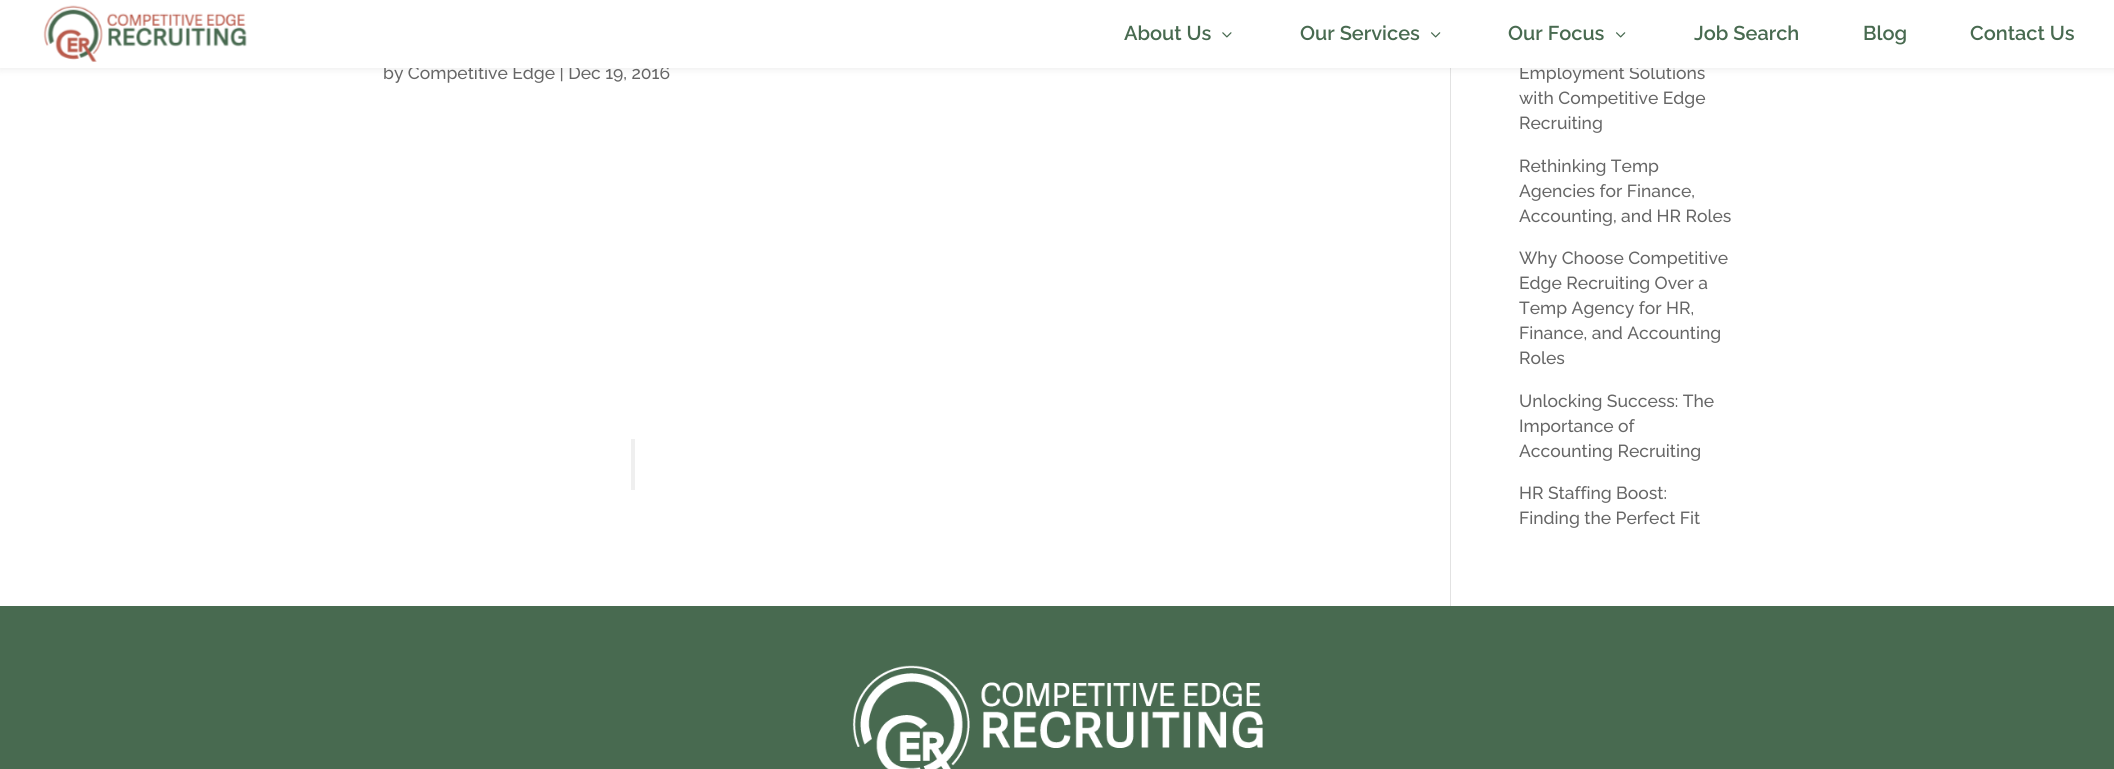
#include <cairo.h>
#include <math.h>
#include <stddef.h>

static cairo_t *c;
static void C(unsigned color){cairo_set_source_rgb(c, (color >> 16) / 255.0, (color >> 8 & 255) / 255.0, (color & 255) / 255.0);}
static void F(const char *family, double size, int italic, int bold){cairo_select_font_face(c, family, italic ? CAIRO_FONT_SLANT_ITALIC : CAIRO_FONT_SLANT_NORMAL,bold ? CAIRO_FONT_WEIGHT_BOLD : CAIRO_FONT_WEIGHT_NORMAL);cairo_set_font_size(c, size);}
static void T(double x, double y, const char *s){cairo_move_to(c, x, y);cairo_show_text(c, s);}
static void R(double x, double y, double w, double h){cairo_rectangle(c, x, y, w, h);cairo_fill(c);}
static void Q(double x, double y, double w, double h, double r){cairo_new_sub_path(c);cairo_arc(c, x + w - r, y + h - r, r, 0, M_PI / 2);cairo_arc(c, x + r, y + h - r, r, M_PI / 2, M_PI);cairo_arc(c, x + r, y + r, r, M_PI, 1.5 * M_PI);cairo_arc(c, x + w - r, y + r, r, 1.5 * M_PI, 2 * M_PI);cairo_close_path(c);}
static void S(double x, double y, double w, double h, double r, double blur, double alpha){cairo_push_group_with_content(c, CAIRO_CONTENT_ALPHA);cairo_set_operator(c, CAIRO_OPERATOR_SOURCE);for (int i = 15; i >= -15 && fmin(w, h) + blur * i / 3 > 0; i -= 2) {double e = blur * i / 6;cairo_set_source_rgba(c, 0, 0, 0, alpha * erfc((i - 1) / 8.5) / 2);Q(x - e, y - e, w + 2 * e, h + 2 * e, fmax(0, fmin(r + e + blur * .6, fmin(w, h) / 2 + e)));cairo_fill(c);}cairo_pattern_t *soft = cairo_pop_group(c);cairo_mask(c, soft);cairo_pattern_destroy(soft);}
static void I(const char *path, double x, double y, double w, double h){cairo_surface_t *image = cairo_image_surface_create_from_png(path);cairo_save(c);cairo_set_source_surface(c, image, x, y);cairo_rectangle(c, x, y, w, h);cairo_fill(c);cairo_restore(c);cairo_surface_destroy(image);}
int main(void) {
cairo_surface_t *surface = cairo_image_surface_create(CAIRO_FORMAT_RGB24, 2114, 769);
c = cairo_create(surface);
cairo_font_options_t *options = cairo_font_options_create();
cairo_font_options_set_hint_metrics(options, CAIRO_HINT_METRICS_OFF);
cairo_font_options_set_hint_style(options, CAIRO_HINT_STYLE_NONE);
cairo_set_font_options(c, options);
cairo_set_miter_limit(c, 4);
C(0xffffff);
cairo_paint(c);
C(0xe2e2e2);
R(1450,68,1,538);
C(0x000000);
S(0,0,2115,68,0,4.5,.1);
F("Raleway Medium",17.5,0,0);
C(0x666666);
T(383,79,"by Competitive Edge | Dec 19, 2016");
T(1519,79,"Employment Solutions");
C(0xffffff);
R(0,0,2114,68);
I("1.png",43,5,204,57);
F("Raleway SemiBold",20,0,0);
C(0x486a50);
T(1124,40,"About Us");
I("2.png",1222,32,10,6);
T(1300,40,"Our Services");
I("3.png",1431,32,10,6);
T(1508,40,"Our Focus");
I("3.png",1616,32,10,6);
T(1694,40,"Job Search");
T(1863,40,"Blog");
T(1970,40,"Contact Us");
C(0xefefef);
R(631,439,4,51);
F("Raleway Medium",17.5,0,0);
C(0x666666);
T(1519,104,"with Competitive Edge");
T(1519,129,"Recruiting");
T(1519,172,"Rethinking Temp");
T(1519,197,"Agencies for Finance,");
T(1519,222,"Accounting, and HR Roles");
T(1519,264,"Why Choose Competitive");
T(1519,289,"Edge Recruiting Over a");
T(1519,314,"Temp Agency for HR,");
T(1519,339,"Finance, and Accounting");
T(1519,364,"Roles");
T(1519,407,"Unlocking Success: The");
T(1519,432,"Importance of");
T(1519,457,"Accounting Recruiting");
T(1519,499,"HR Staffing Boost:");
T(1519,524,"Finding the Perfect Fit");
C(0x486a50);
R(0,606,2114,163);
I("4.png",852,665,411,104);
cairo_surface_write_to_png(surface, "o.png");
cairo_font_options_destroy(options);
cairo_destroy(c);
cairo_surface_destroy(surface);
return 0;
}
